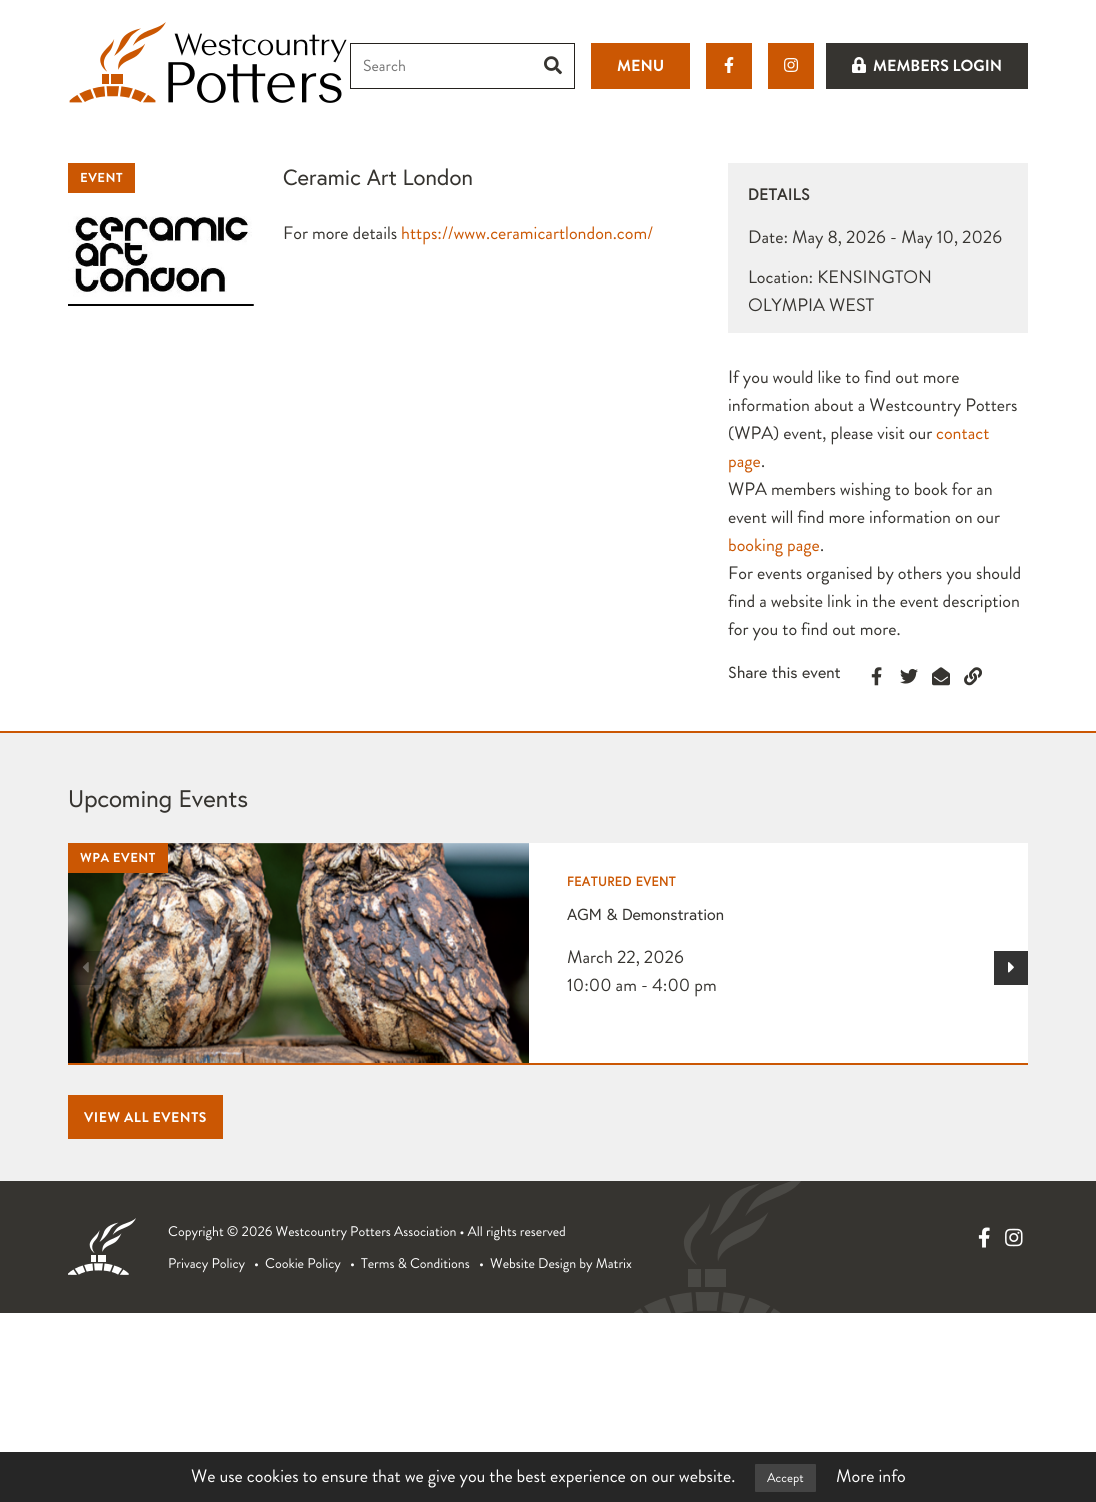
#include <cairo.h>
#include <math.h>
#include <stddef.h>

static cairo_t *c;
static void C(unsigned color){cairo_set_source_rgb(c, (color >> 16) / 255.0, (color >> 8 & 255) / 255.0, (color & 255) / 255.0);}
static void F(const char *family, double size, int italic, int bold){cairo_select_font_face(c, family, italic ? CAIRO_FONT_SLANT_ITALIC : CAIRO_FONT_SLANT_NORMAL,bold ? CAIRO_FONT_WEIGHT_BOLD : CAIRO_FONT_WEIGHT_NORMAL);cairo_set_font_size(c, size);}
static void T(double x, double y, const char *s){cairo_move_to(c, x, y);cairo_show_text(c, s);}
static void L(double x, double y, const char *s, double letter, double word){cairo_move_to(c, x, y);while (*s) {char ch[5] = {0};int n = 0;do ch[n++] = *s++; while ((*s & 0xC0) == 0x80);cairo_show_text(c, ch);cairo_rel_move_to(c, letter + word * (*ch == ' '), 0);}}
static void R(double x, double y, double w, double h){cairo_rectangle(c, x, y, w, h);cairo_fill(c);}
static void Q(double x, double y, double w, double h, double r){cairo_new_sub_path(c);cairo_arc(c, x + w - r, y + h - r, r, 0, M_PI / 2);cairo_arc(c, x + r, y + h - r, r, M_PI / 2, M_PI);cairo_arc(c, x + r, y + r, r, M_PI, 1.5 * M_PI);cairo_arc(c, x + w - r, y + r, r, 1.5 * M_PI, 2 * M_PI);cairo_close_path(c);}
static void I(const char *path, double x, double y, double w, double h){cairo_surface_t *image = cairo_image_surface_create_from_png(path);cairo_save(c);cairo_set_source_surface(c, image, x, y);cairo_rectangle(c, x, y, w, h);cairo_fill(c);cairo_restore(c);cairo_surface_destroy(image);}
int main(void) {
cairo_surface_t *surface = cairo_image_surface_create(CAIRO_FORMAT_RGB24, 1096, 1502);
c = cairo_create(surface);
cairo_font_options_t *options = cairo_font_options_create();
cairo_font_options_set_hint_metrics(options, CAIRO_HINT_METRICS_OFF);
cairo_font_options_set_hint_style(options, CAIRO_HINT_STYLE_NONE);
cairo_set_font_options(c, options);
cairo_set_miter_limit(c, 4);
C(0xffffff);
cairo_paint(c);
I("1.png",69,22,278,81);
cairo_rectangle(c,350.5,43.5,224,45);
C(0x24211d);
cairo_set_line_width(c,1);
cairo_stroke(c);
F("Brandon Grotesque",16,0,0);
C(0x757575);
T(363,71,"Search");
I("2.png",544,56,18,19);
C(0xcb5703);
R(591,43,99,46);
F("Brandon Grotesque",16,0,1);
C(0xffffff);
T(617,71,"MENU");
C(0xcb5703);
R(706,43,46,46);
I("3.png",724,57,10,16);
R(768,43,46,46);
I("4.png",784,58,15,14);
C(0x363430);
R(826,43,202,46);
I("5.png",852,57,14,16);
C(0xffffff);
T(873,71,"MEMBERS LOGIN");
C(0xcb5703);
R(68,163,67,30);
F("Brandon Grotesque",13,0,1);
C(0xffffff);
L(80,182,"EVENT",.5,0);
I("6.png",68,216,187,90);
F("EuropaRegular",22,0,0);
C(0x363430);
T(283,185,"Ceramic Art London");
F("Brandon Grotesque",18,0,0);
T(283,239,"For more details");
C(0xcb5703);
T(401,239,"https://www.ceramicartlondon.com/");
C(0xf0f0f0);
R(728,163,300,170);
F("EuropaRegular",16,0,1);
C(0x363430);
L(748,200,"DETAILS",.5,0);
F("Brandon Grotesque",18,0,0);
T(748,243,"Date: May 8, 2026 - May 10, 2026");
T(748,283,"Location: KENSINGTON");
T(748,311,"OLYMPIA WEST");
T(728,383,"If you would like to find out more");
T(728,411,"information about a Westcountry Potters");
T(728,439,"(WPA) event, please visit our");
C(0xcb5703);
T(936,439,"contact");
T(728,467,"page");
C(0x363430);
T(761,467,".");
T(728,495,"WPA members wishing to book for an");
T(728,523,"event will find more information on our");
C(0xcb5703);
T(728,551,"booking page");
C(0x363430);
T(820,551,".");
T(728,579,"For events organised by others you should");
T(728,607,"find a website link in the event description");
T(728,635,"for you to find out more.");
F("EuropaRegular",16,0,0);
T(728,678,"Share this event");
I("7.png",871,667,11,19);
I("8.png",900,668,18,16);
I("9.png",932,667,18,19);
I("10.png",964,667,18,19);
C(0xf0f0f0);
R(0,733,1096,448);
C(0xcb5703);
R(0,731,1096,2);
F("EuropaRegular",24,0,0);
C(0x363430);
T(68,807,"Upcoming Events");
C(0xffffff);
R(168,843,860,220);
C(0xcb5703);
R(68,1063,960,2);
I("11.png",68,843,461,220);
R(68,843,100,30);
F("Brandon Grotesque",13,0,1);
C(0xffffff);
L(80,862,"WPA EVENT",.5,0);
F("EuropaRegular",13,0,1);
C(0xcb5703);
L(567,886,"FEATURED EVENT",.5,0);
F("EuropaRegular",16,0,0);
C(0x363430);
T(567,920,"AGM & Demonstration");
F("Brandon Grotesque",18,0,0);
T(567,963,"March 22, 2026");
T(567,991,"10:00 am - 4:00 pm");
cairo_set_source_rgba(c,0,0,0,0.24);
R(71,951,31,34);
I("12.png",82,962,7,11);
C(0x333333);
R(994,951,34,34);
I("13.png",1008,962,6,11);
C(0xcb5703);
R(68,1095,155,44);
F("Brandon Grotesque",14,0,1);
C(0xffffff);
L(84,1122,"VIEW ALL EVENTS",.5,0);
C(0x363430);
R(0,1181,1096,132);
I("14.png",68,1218,68,57);
F("Brandon Grotesque",14,0,0);
C(0xffffff);
T(168,1236,"Copyright © 2026 Westcountry Potters Association • All rights reserved");
T(168,1268,"Privacy Policy");
T(254,1268,"•");
T(265,1268,"Cookie Policy");
T(350,1268,"•");
T(361,1268,"Terms & Conditions");
T(479,1268,"•");
T(490,1268,"Website Design by Matrix");
I("15.png",978,1227,12,21);
I("16.png",1005,1228,18,19);
I("17.png",634,1181,167,132);
C(0x262626);
R(0,1452,1096,50);
F("Brandon Grotesque",18,0,0);
C(0xffffff);
T(191,1482,"We use cookies to ensure that we give you the best experience on our website.");
C(0x444444);
Q(755,1464,61,28,1);
cairo_fill(c);
F("Brandon Grotesque",13,0,0);
C(0xffffff);
T(767,1482,"Accept");
F("Brandon Grotesque",18,0,0);
T(836,1482,"More info");
cairo_surface_write_to_png(surface, "o.png");
cairo_font_options_destroy(options);
cairo_destroy(c);
cairo_surface_destroy(surface);
return 0;
}
